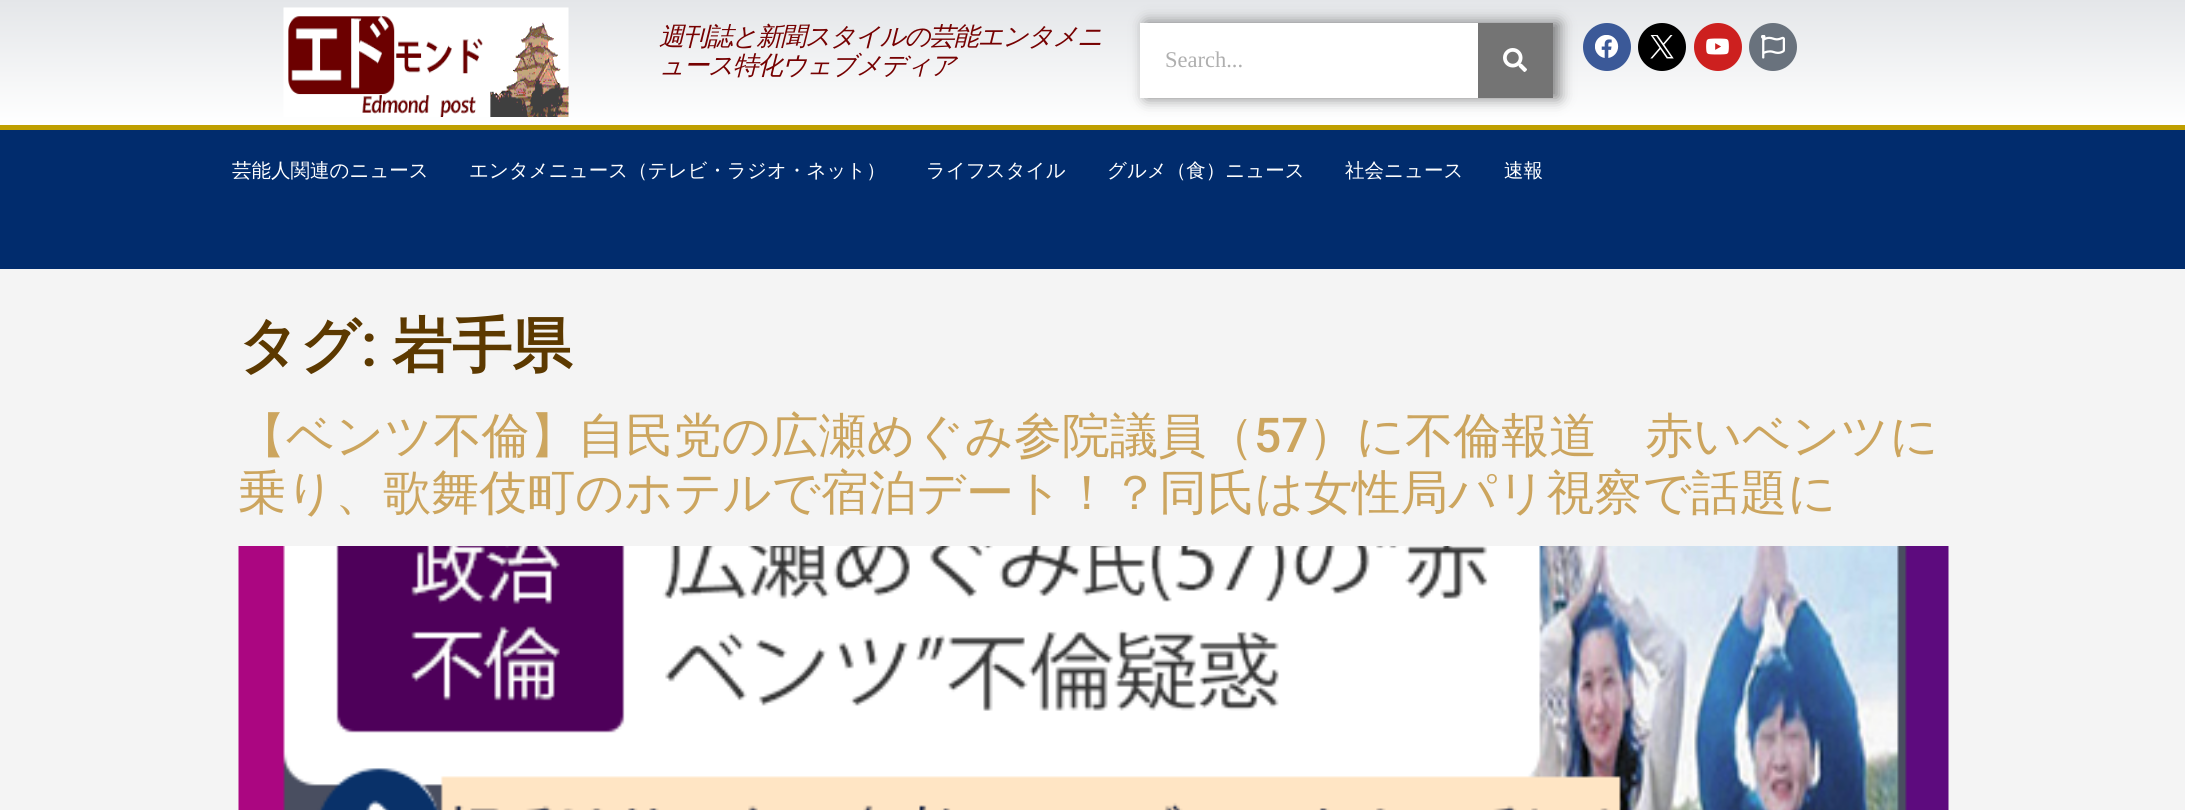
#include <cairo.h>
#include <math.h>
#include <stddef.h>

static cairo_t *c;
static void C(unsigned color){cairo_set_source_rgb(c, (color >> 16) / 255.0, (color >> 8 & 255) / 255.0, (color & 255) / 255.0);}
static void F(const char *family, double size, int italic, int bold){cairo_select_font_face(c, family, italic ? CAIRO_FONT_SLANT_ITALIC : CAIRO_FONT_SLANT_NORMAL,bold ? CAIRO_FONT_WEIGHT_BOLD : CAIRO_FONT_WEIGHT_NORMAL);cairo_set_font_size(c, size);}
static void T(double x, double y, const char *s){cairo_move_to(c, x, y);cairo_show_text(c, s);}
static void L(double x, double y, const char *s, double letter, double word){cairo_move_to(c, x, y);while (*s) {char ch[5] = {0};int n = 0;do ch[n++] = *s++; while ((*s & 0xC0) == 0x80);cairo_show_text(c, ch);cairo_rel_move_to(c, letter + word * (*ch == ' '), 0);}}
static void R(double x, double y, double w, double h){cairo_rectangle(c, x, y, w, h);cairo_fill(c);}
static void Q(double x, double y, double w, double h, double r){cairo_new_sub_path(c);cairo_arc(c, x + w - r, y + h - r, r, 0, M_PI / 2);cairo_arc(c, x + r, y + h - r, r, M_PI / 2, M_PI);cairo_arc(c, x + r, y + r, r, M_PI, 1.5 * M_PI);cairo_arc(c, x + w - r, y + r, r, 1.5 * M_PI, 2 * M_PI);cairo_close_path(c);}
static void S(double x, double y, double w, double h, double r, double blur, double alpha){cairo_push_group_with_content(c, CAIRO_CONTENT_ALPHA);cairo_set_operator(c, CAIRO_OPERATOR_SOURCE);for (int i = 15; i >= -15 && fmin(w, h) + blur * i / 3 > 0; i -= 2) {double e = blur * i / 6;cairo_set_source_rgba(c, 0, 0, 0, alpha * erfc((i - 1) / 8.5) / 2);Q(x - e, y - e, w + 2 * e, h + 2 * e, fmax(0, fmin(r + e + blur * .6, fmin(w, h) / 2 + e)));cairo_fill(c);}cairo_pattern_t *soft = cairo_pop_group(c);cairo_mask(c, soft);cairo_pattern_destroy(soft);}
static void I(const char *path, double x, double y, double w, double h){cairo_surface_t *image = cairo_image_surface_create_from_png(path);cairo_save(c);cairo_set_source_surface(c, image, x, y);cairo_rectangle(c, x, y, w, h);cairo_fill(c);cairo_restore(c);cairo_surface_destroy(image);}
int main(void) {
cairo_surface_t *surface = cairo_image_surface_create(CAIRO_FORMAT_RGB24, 2185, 810);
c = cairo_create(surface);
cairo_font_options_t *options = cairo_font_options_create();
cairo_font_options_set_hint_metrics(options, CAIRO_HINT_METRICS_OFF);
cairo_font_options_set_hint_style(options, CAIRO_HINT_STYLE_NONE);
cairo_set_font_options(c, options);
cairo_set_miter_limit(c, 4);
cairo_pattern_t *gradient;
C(0xf4f4f4);
cairo_paint(c);
gradient = cairo_pattern_create_linear(1093,0,1093,125);
cairo_pattern_add_color_stop_rgba(gradient,0,0.894,0.902,0.914,1);
cairo_pattern_add_color_stop_rgba(gradient,1,1,1,1,1);
cairo_set_source(c,gradient);
cairo_pattern_destroy(gradient);
R(0,0,2185,125);
I("1.png",283,7,286,110);
F("WenQuanYi Zen Hei Medium",25.5,1,0);
C(0x760101);
L(659,45,"週刊誌と新聞スタイルの芸能エンタメニ",-1.25,0);
L(659,74,"ュース特化ウェブメディア",-1.25,0);
C(0x000000);
S(1146,23,413,75,0,7.5,.5);
C(0xffffff);
R(1140,23,338,75);
F("Liberation Serif",22.5,0,0);
C(0xafafaf);
T(1165,67,"Search...");
C(0x747474);
R(1478,23,75,75);
I("2.png",1503,48,24,24);
C(0x3b5998);
cairo_arc(c,1607,47,24,0,2 * M_PI);
cairo_fill(c);
I("3.png",1595,35,24,23);
C(0x000000);
cairo_arc(c,1662,47,24,0,2 * M_PI);
cairo_fill(c);
I("4.png",1650,35,24,24);
C(0xcd201f);
cairo_arc(c,1718,47,24,0,2 * M_PI);
cairo_fill(c);
I("5.png",1706,38,23,17);
C(0x69727d);
cairo_arc(c,1773,47,24,0,2 * M_PI);
cairo_fill(c);
I("6.png",1761,35,24,24);
C(0x012c6d);
R(0,130,2185,139);
C(0xbf9f00);
R(0,125,2185,5);
F("WenQuanYi Zen Hei Medium",19.5,0,0);
C(0xffffff);
T(232,177,"芸能人関連のニュース");
T(469,177,"エンタメニュース（テレビ・ラジオ・ネット）");
T(926,177,"ライフスタイル");
T(1107,177,"グルメ（食）ニュース");
T(1345,177,"社会ニュース");
T(1504,177,"速報");
F("WenQuanYi Zen Hei",60,0,1);
C(0x5c3900);
T(238,366,"タグ");
F("Roboto SemiBold",60,0,0);
T(361,366,":");
F("WenQuanYi Zen Hei",60,0,1);
T(392,366,"岩手県");
F("WenQuanYi Zen Hei Medium",48,0,0);
C(0xcca55e);
T(238,452,"【ベンツ不倫】自民党の広瀬めぐみ参院議員（");
F("Roboto Medium",48,0,0);
T(1254,452,"57");
F("WenQuanYi Zen Hei Medium",48,0,0);
T(1308,452,"）に不倫報道　赤いベンツに");
T(238,509,"乗り、歌舞伎町のホテルで宿泊デート！？同氏は女性局パリ視察で話題に");
I("7.png",238,546,1711,264);
cairo_surface_write_to_png(surface, "o.png");
cairo_font_options_destroy(options);
cairo_destroy(c);
cairo_surface_destroy(surface);
return 0;
}
